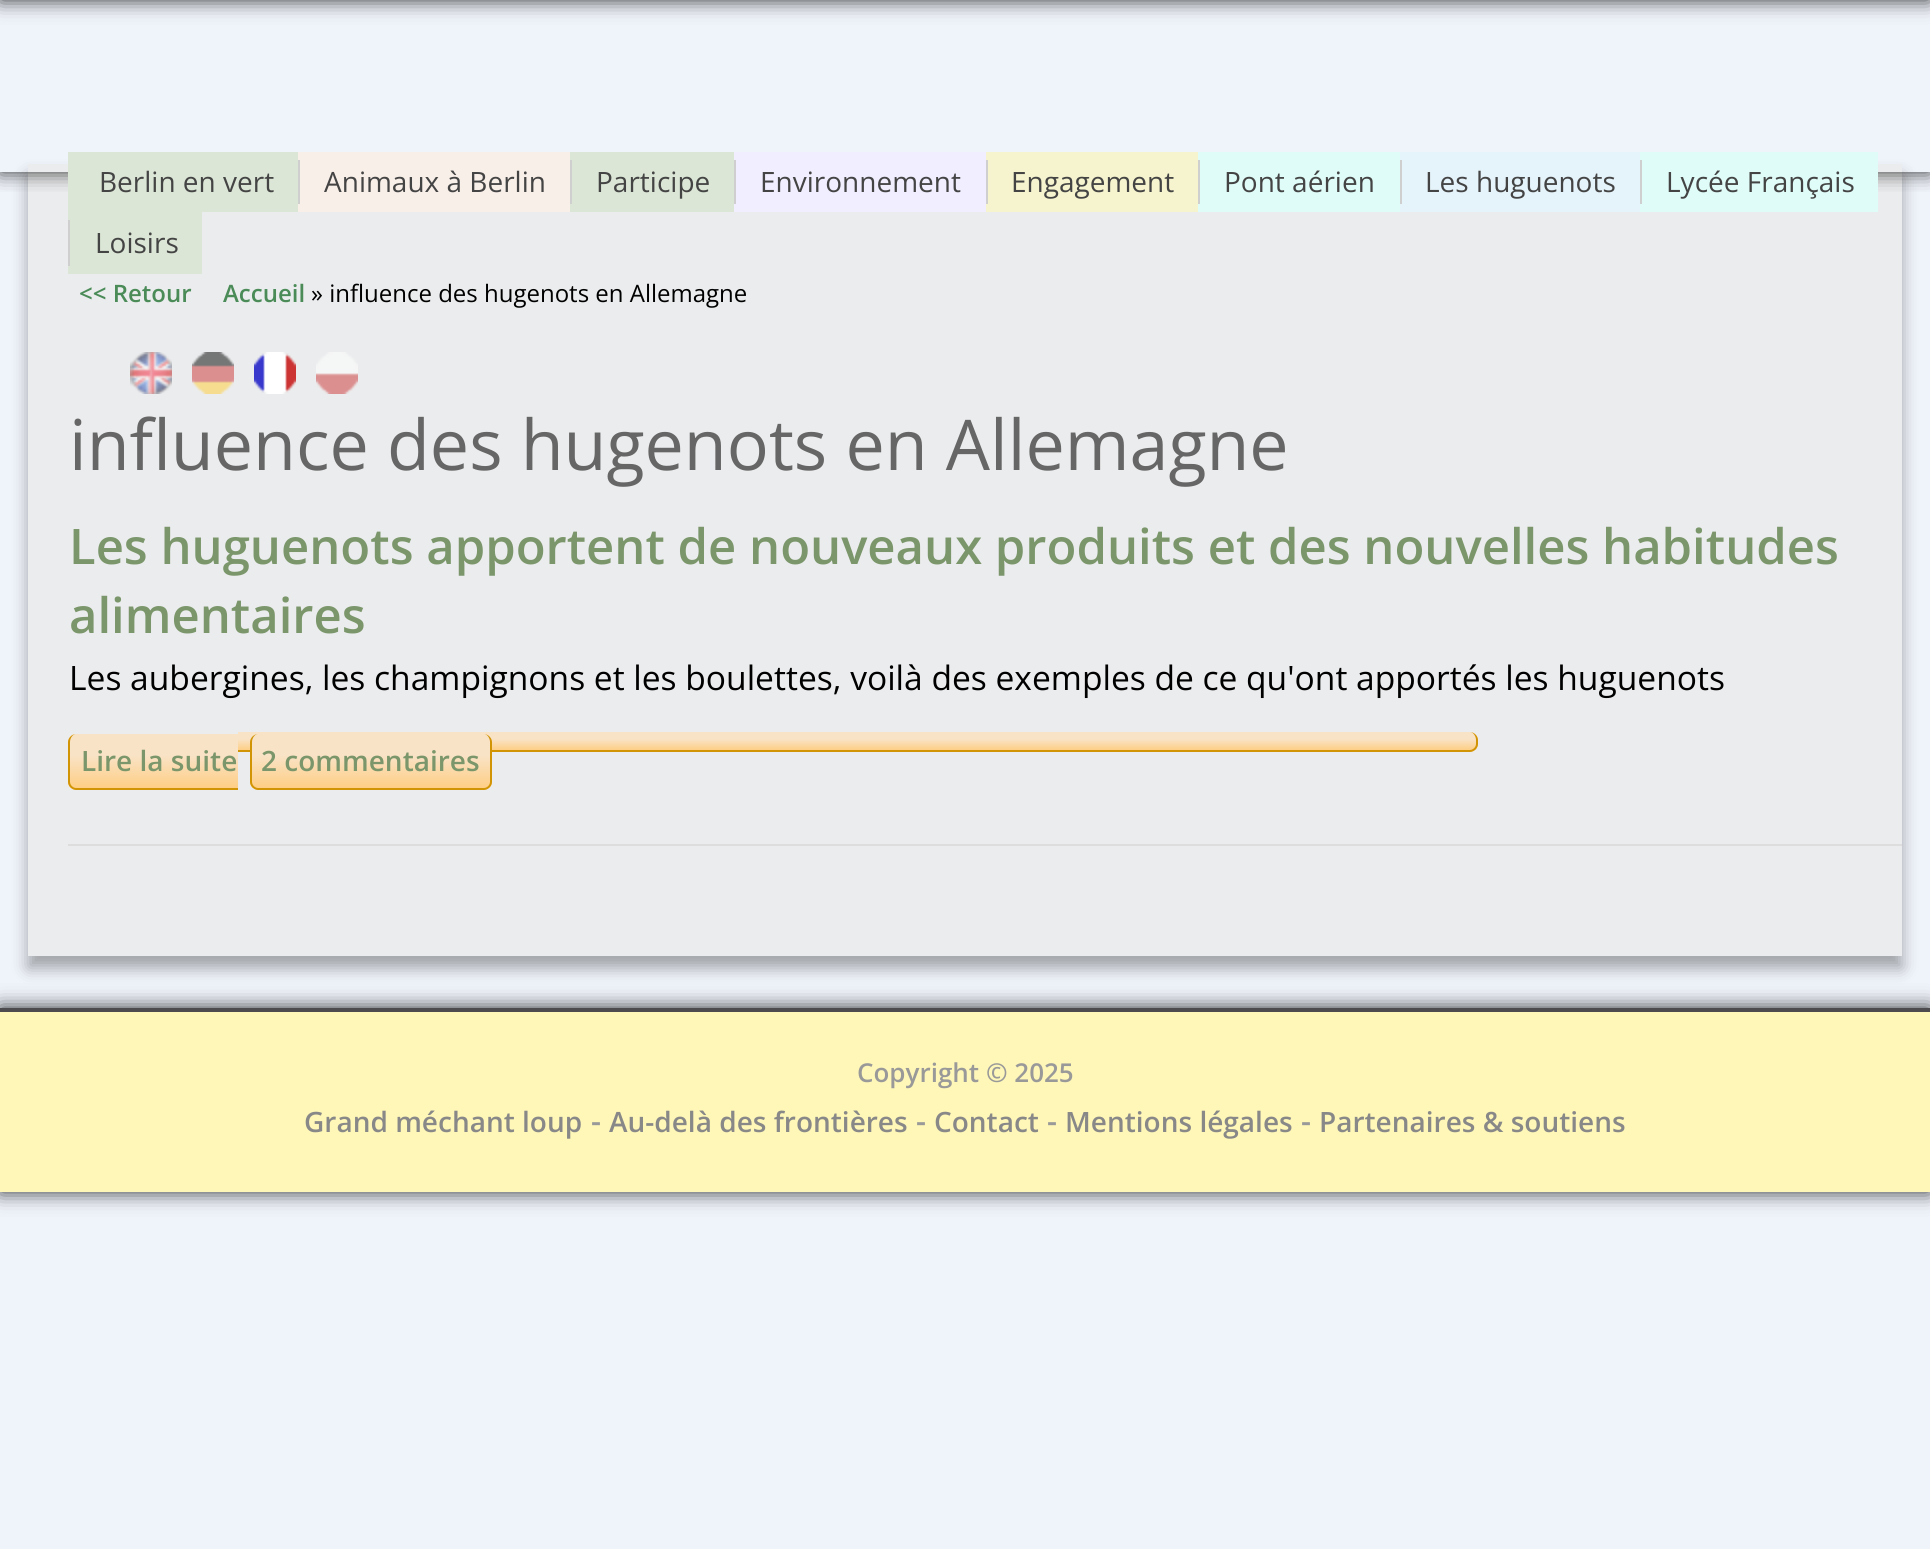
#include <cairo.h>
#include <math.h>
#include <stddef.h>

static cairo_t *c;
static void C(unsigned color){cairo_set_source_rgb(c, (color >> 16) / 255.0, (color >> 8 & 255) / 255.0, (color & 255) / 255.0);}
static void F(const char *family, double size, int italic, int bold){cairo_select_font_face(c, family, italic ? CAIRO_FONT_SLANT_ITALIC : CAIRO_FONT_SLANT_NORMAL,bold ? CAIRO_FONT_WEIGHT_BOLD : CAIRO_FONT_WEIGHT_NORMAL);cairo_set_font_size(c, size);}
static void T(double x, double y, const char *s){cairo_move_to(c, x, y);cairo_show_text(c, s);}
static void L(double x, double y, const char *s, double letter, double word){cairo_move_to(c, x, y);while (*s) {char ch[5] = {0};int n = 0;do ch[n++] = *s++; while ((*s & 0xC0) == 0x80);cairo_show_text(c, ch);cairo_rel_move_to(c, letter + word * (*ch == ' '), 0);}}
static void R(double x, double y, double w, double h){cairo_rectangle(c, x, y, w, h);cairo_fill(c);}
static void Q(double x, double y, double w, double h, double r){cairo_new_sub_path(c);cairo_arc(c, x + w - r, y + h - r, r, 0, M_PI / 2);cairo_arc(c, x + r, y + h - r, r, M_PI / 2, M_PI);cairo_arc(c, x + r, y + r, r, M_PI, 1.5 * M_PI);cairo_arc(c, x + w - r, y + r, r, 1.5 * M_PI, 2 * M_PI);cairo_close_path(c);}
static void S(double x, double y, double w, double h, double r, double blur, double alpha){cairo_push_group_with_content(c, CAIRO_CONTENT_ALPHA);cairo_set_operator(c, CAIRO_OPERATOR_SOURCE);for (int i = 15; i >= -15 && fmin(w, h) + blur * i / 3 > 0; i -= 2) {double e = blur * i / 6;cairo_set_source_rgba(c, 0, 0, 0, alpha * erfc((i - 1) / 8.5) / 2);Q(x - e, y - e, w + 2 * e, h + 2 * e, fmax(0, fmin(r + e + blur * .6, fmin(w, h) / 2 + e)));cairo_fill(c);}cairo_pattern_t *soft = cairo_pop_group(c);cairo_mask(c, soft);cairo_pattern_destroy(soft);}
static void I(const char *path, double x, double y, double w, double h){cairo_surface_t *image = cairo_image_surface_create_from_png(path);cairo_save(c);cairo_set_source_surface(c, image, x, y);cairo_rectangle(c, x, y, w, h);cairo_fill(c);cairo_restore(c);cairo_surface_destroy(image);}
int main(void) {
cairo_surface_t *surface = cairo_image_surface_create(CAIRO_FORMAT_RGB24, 1930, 1549);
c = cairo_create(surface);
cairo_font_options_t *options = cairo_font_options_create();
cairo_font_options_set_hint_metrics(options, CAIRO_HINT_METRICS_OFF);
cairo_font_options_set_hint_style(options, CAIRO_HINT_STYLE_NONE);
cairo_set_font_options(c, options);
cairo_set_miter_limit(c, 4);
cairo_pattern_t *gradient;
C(0xeff3fa);
cairo_paint(c);
C(0x000000);
S(0,-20,1930,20,0,10,.8);
S(28,176,1874,792,0,8,.33);
C(0xebeced);
R(28,164,1874,792);
cairo_save(c);
cairo_rectangle(c,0,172,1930,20);
cairo_clip(c);
C(0x000000);
S(0,-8,1930,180,0,10,.8);
cairo_restore(c);
C(0xdbe6d6);
R(68,152,230,60);
F("Open Sans",28,0,0);
C(0x444444);
T(99,192,"Berlin en vert");
C(0xf9efe9);
R(298,152,272,60);
C(0xcfcfcf);
R(298,160,2,44);
C(0x444444);
T(324,192,"Animaux à Berlin");
C(0xdbe6d6);
R(570,152,164,60);
C(0xcfcfcf);
R(570,160,2,44);
C(0x444444);
T(596,192,"Participe");
C(0xf1eeff);
R(734,152,252,60);
C(0xcfcfcf);
R(734,160,2,44);
C(0x444444);
T(760,192,"Environnement");
C(0xf6f4ce);
R(986,152,212,60);
C(0xcfcfcf);
R(986,160,2,44);
C(0x444444);
T(1011,192,"Engagement");
C(0xdffcf8);
R(1198,152,202,60);
C(0xcfcfcf);
R(1198,160,2,44);
C(0x444444);
T(1224,192,"Pont aérien");
C(0xe5f3fa);
R(1400,152,240,60);
C(0xcfcfcf);
R(1400,160,2,44);
C(0x444444);
T(1425,192,"Les huguenots");
C(0xdffcf8);
R(1640,152,238,60);
C(0xcfcfcf);
R(1640,160,2,44);
C(0x444444);
T(1666,192,"Lycée Français");
C(0xdbe6d6);
R(68,212,134,62);
C(0xcfcfcf);
R(68,220,2,46);
C(0x444444);
T(95,253,"Loisirs");
F("Open Sans SemiBold",24,0,0);
C(0x4a8b58);
T(79,302,"<< Retour");
T(223,302,"Accueil");
F("Open Sans",24,0,0);
C(0x000000);
T(311,302,"» influence des hugenots en Allemagne");
I("1.png",130,352,42,42);
I("2.png",192,352,42,42);
I("3.png",254,352,42,42);
I("4.png",316,352,42,42);
F("Open Sans",70,0,0);
C(0x666666);
T(69,470,"influence des hugenots en Allemagne");
C(0xdddddd);
R(68,844,1834,2);
F("Open Sans SemiBold",49,0,0);
C(0x7a966a);
T(69,564,"Les huguenots apportent de nouveaux produits et des nouvelles habitudes");
T(69,633,"alimentaires");
F("Open Sans",33.6,0,0);
C(0x000000);
L(69,690,"Les aubergines, les champignons et les boulettes, voilà des exemples de ce qu'ont apportés les huguenots",0,-.1);
cairo_save(c);
cairo_new_path(c);
cairo_move_to(c,76,734);
cairo_line_to(c,238,734);
cairo_line_to(c,238,790);
cairo_line_to(c,76,790);
cairo_curve_to(c,71.5,790,68,786.5,68,782);
cairo_line_to(c,68,742);
cairo_curve_to(c,68,737.5,71.5,734,76,734);
cairo_close_path(c);
cairo_clip(c);
gradient = cairo_pattern_create_linear(154,734,154,788);
cairo_pattern_add_color_stop_rgba(gradient,0,0.976,0.89,0.776,1);
cairo_pattern_add_color_stop_rgba(gradient,.4,0.976,0.89,0.776,1);
cairo_pattern_add_color_stop_rgba(gradient,1,0.996,0.808,0.522,1);
cairo_set_source(c,gradient);
cairo_pattern_destroy(gradient);
cairo_new_path(c);
cairo_move_to(c,76,734);
cairo_line_to(c,238,734);
cairo_line_to(c,238,788);
cairo_line_to(c,68,788);
cairo_line_to(c,68,742);
cairo_curve_to(c,68,737.5,71.5,734,76,734);
cairo_close_path(c);
cairo_fill(c);
gradient = cairo_pattern_create_linear(154,788,154,842);
cairo_pattern_add_color_stop_rgba(gradient,0,0.976,0.89,0.776,1);
cairo_pattern_add_color_stop_rgba(gradient,.4,0.976,0.89,0.776,1);
cairo_pattern_add_color_stop_rgba(gradient,1,0.996,0.808,0.522,1);
cairo_set_source(c,gradient);
cairo_pattern_destroy(gradient);
R(68,788,8,2);
cairo_restore(c);
C(0xd19405);
cairo_set_fill_rule(c,CAIRO_FILL_RULE_EVEN_ODD);
cairo_new_path(c);
cairo_move_to(c,76,734);
cairo_line_to(c,238,734);
cairo_line_to(c,238,790);
cairo_line_to(c,76,790);
cairo_curve_to(c,72,790,68,786,68,782);
cairo_line_to(c,68,742);
cairo_curve_to(c,68,738,72,734,76,734);
cairo_close_path(c);
cairo_move_to(c,76,734);
cairo_line_to(c,238,734);
cairo_line_to(c,238,788);
cairo_line_to(c,76,788);
cairo_curve_to(c,73,788,70,785,70,782);
cairo_line_to(c,70,742);
cairo_curve_to(c,70,738,73,734,76,734);
cairo_close_path(c);
cairo_fill(c);
F("Open Sans SemiBold",28,0,0);
C(0x7a966a);
T(81,771,"Lire la suite");
cairo_save(c);
cairo_set_fill_rule(c,CAIRO_FILL_RULE_WINDING);
cairo_new_path(c);
cairo_move_to(c,238,732);
cairo_line_to(c,1470,732);
cairo_curve_to(c,1474.5,732,1478,735.5,1478,740);
cairo_line_to(c,1478,744);
cairo_curve_to(c,1478,748.5,1474.5,752,1470,752);
cairo_line_to(c,238,752);
cairo_close_path(c);
cairo_clip(c);
gradient = cairo_pattern_create_linear(857,732,857,750);
cairo_pattern_add_color_stop_rgba(gradient,0,0.976,0.89,0.776,1);
cairo_pattern_add_color_stop_rgba(gradient,.4,0.976,0.89,0.776,1);
cairo_pattern_add_color_stop_rgba(gradient,1,0.996,0.808,0.522,1);
cairo_set_source(c,gradient);
cairo_pattern_destroy(gradient);
cairo_new_path(c);
cairo_move_to(c,238,732);
cairo_line_to(c,1470,732);
cairo_curve_to(c,1474.5,732,1478,735.5,1478,740);
cairo_line_to(c,1478,750);
cairo_line_to(c,238,750);
cairo_close_path(c);
cairo_fill(c);
gradient = cairo_pattern_create_linear(857,750,857,768);
cairo_pattern_add_color_stop_rgba(gradient,0,0.976,0.89,0.776,1);
cairo_pattern_add_color_stop_rgba(gradient,.4,0.976,0.89,0.776,1);
cairo_pattern_add_color_stop_rgba(gradient,1,0.996,0.808,0.522,1);
cairo_set_source(c,gradient);
cairo_pattern_destroy(gradient);
R(1470,750,8,2);
cairo_restore(c);
C(0xd19405);
cairo_new_path(c);
cairo_move_to(c,238,732);
cairo_line_to(c,1470,732);
cairo_curve_to(c,1474,732,1478,736,1478,740);
cairo_line_to(c,1478,744);
cairo_curve_to(c,1478,748,1474,752,1470,752);
cairo_line_to(c,238,752);
cairo_close_path(c);
cairo_move_to(c,238,732);
cairo_line_to(c,1470,732);
cairo_curve_to(c,1473,732,1476,736,1476,740);
cairo_line_to(c,1476,744);
cairo_curve_to(c,1476,747,1473,750,1470,750);
cairo_line_to(c,238,750);
cairo_close_path(c);
cairo_fill(c);
cairo_save(c);
cairo_set_fill_rule(c,CAIRO_FILL_RULE_WINDING);
Q(250,734,242,56,8);
cairo_clip(c);
gradient = cairo_pattern_create_linear(371,734,371,788);
cairo_pattern_add_color_stop_rgba(gradient,0,0.976,0.89,0.776,1);
cairo_pattern_add_color_stop_rgba(gradient,.4,0.976,0.89,0.776,1);
cairo_pattern_add_color_stop_rgba(gradient,1,0.996,0.808,0.522,1);
cairo_set_source(c,gradient);
cairo_pattern_destroy(gradient);
cairo_new_path(c);
cairo_move_to(c,258,734);
cairo_line_to(c,484,734);
cairo_curve_to(c,488.5,734,492,737.5,492,742);
cairo_line_to(c,492,788);
cairo_line_to(c,250,788);
cairo_line_to(c,250,742);
cairo_curve_to(c,250,737.5,253.5,734,258,734);
cairo_close_path(c);
cairo_fill(c);
gradient = cairo_pattern_create_linear(371,788,371,842);
cairo_pattern_add_color_stop_rgba(gradient,0,0.976,0.89,0.776,1);
cairo_pattern_add_color_stop_rgba(gradient,.4,0.976,0.89,0.776,1);
cairo_pattern_add_color_stop_rgba(gradient,1,0.996,0.808,0.522,1);
cairo_set_source(c,gradient);
cairo_pattern_destroy(gradient);
R(250,788,242,2);
cairo_restore(c);
cairo_new_path(c);
cairo_move_to(c,258,734);
cairo_line_to(c,484,734);
cairo_curve_to(c,488,734,492,738,492,742);
cairo_line_to(c,492,782);
cairo_curve_to(c,492,786,488,790,484,790);
cairo_line_to(c,258,790);
cairo_curve_to(c,254,790,250,786,250,782);
cairo_line_to(c,250,742);
cairo_curve_to(c,250,738,254,734,258,734);
cairo_close_path(c);
cairo_move_to(c,258,734);
cairo_line_to(c,484,734);
cairo_curve_to(c,487,734,490,738,490,742);
cairo_line_to(c,490,782);
cairo_curve_to(c,490,785,487,788,484,788);
cairo_line_to(c,258,788);
cairo_curve_to(c,255,788,252,785,252,782);
cairo_line_to(c,252,742);
cairo_curve_to(c,252,738,255,734,258,734);
cairo_close_path(c);
cairo_fill(c);
C(0x7a966a);
T(261,771,"2 commentaires");
C(0x000000);
S(0,1008,1930,184,0,10,.8);
C(0xfff7b8);
R(0,1012,1930,180);
C(0x4d4b4e);
R(0,1008,1930,4);
F("Open Sans SemiBold",26,0,0);
C(0x999999);
T(857,1082,"Copyright © 2025");
F("Open Sans SemiBold",28,0,0);
C(0x888888);
T(304,1132,"Grand méchant loup");
F("Open Sans SemiBold",31,0,0);
C(0x999999);
T(591,1132,"-");
F("Open Sans SemiBold",28,0,0);
C(0x888888);
T(609,1132,"Au-delà des frontières");
F("Open Sans SemiBold",31,0,0);
C(0x999999);
T(916,1132,"-");
F("Open Sans SemiBold",28,0,0);
C(0x888888);
T(934,1132,"Contact");
F("Open Sans SemiBold",31,0,0);
C(0x999999);
T(1047,1132,"-");
F("Open Sans SemiBold",28,0,0);
C(0x888888);
T(1065,1132,"Mentions légales");
F("Open Sans SemiBold",31,0,0);
C(0x999999);
T(1301,1132,"-");
F("Open Sans SemiBold",28,0,0);
C(0x888888);
T(1319,1132,"Partenaires & soutiens");
cairo_surface_write_to_png(surface, "o.png");
cairo_font_options_destroy(options);
cairo_destroy(c);
cairo_surface_destroy(surface);
return 0;
}
